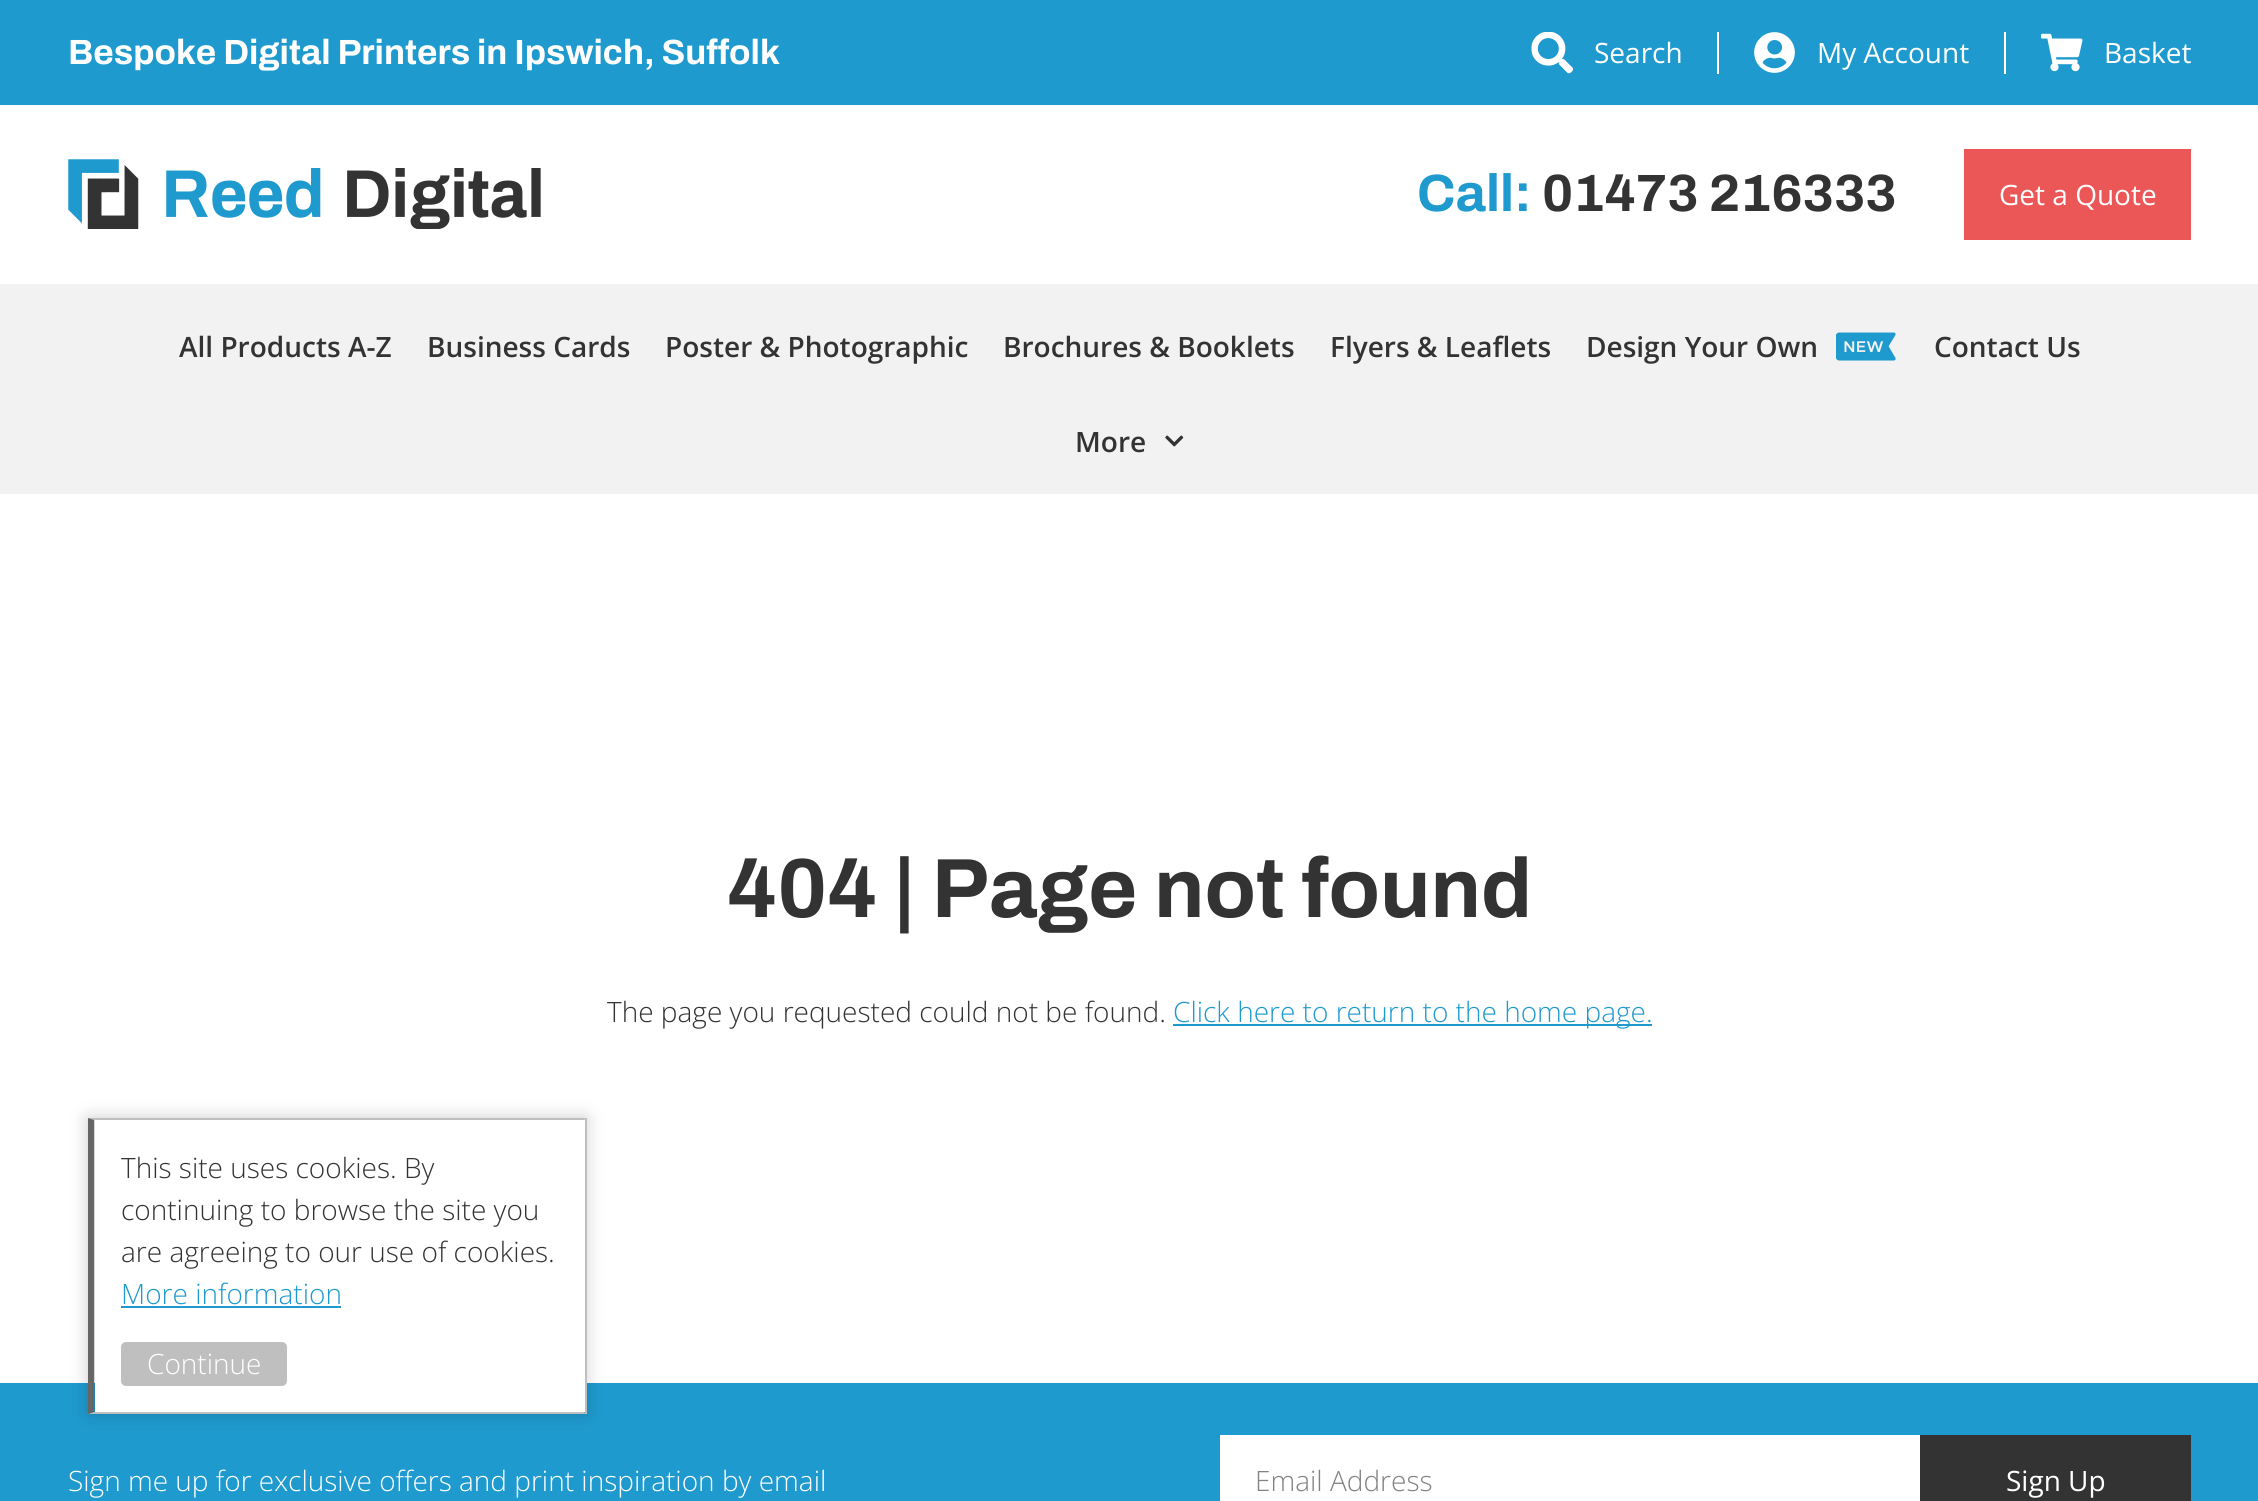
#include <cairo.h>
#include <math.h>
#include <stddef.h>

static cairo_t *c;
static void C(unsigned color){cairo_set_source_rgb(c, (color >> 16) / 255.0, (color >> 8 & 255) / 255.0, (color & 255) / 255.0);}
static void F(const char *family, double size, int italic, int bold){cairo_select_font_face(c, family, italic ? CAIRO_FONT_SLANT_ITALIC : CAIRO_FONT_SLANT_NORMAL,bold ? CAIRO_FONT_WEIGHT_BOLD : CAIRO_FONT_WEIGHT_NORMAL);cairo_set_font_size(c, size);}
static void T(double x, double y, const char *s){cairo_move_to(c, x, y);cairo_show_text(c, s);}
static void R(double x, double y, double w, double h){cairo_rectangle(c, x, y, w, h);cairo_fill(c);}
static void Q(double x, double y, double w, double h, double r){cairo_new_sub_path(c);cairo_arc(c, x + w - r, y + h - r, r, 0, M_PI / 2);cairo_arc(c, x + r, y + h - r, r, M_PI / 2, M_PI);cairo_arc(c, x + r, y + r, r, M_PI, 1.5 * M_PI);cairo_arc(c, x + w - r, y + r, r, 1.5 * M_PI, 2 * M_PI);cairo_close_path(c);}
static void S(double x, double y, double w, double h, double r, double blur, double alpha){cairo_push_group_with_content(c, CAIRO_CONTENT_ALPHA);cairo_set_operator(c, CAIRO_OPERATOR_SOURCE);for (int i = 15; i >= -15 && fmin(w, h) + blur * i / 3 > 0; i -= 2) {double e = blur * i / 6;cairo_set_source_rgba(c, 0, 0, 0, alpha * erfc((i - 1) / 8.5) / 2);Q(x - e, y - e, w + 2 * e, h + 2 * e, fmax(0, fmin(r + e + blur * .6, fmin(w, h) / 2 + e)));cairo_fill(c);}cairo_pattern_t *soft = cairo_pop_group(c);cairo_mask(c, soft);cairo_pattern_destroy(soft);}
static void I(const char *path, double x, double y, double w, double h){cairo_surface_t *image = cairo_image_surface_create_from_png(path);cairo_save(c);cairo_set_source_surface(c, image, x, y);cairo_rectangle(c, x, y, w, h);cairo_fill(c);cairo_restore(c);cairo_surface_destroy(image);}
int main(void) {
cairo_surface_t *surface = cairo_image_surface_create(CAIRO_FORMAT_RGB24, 2258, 1501);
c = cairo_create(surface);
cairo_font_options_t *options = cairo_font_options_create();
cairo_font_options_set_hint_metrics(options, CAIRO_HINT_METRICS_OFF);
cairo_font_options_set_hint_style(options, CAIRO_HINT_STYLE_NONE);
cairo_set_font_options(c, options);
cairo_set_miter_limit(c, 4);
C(0xffffff);
cairo_paint(c);
C(0x1f9acf);
R(0,0,2258,105);
F("Archivo",35,0,1);
C(0xffffff);
T(68,64,"Bespoke Digital Printers in Ipswich, Suffolk");
R(1717,32,2,42);
I("1.png",1531,32,42,42);
F("Open Sans",28,0,0);
T(1594,63,"Search");
R(2004,32,2,42);
I("2.png",1754,32,41,41);
T(1817,63,"My Account");
I("3.png",2041,33,42,39);
T(2104,63,"Basket");
I("4.png",68,159,473,70);
F("Archivo",52.5,0,1);
C(0x1f9acf);
T(1417,211,"Call:");
C(0x333333);
T(1542,211,"01473 216333");
C(0xeb5757);
R(1964,149,227,91);
F("Open Sans",28,0,0);
C(0xffffff);
T(1999,205,"Get a Quote");
C(0xf2f2f2);
R(0,284,2258,210);
F("Open Sans SemiBold",28,0,0);
C(0x333333);
T(179,357,"All Products A-Z");
T(427,357,"Business Cards");
T(665,357,"Poster & Photographic");
T(1003,357,"Brochures & Booklets");
T(1330,357,"Flyers & Leaflets");
T(1586,357,"Design Your Own");
I("5.png",1836,332,60,29);
T(1934,357,"Contact Us");
T(1075,452,"More");
I("6.png",1165,435,19,12);
F("Archivo",84,0,1);
T(727,917,"404 | Page not found");
F("Open Sans Light",28,0,0);
T(607,1022,"The page you requested could not be found.");
C(0x1f9acf);
R(1173,1024,479,2);
T(1173,1022,"Click here to return to the home page.");
R(0,1383,2258,118);
C(0xffffff);
T(68,1491,"Sign me up for exclusive offers and print inspiration by email");
R(1220,1435,700,66);
C(0x828282);
T(1255,1491,"Email Address");
C(0x333333);
R(1920,1435,271,66);
F("Open Sans",28,0,0);
C(0xffffff);
T(2006,1491,"Sign Up");
C(0x000000);
S(88,1118,498,296,0,9,.2);
C(0xffffff);
R(95,1120,490,292);
C(0xbfbfbf);
cairo_new_path(c);
cairo_move_to(c,88,1118);
cairo_line_to(c,586,1118);
cairo_line_to(c,584,1120);
cairo_line_to(c,94,1120);
cairo_close_path(c);
cairo_fill(c);
R(585,1118,2,296);
cairo_new_path(c);
cairo_move_to(c,586,1414);
cairo_line_to(c,88,1414);
cairo_line_to(c,94,1412);
cairo_line_to(c,584,1412);
cairo_close_path(c);
cairo_fill(c);
C(0x666666);
cairo_new_path(c);
cairo_move_to(c,88,1414);
cairo_line_to(c,88,1118);
cairo_line_to(c,94,1120);
cairo_line_to(c,94,1412);
cairo_close_path(c);
cairo_fill(c);
F("Open Sans Light",28,0,0);
C(0x333333);
T(121,1178,"This site uses cookies. By");
T(121,1220,"continuing to browse the site you");
T(121,1262,"are agreeing to our use of cookies.");
C(0x1f9acf);
T(121,1304,"More information");
R(121,1306,220,2);
C(0xbfbfbf);
Q(121,1342,166,44,5);
cairo_fill(c);
C(0xffffff);
T(147,1374,"Continue");
cairo_surface_write_to_png(surface, "o.png");
cairo_font_options_destroy(options);
cairo_destroy(c);
cairo_surface_destroy(surface);
return 0;
}
